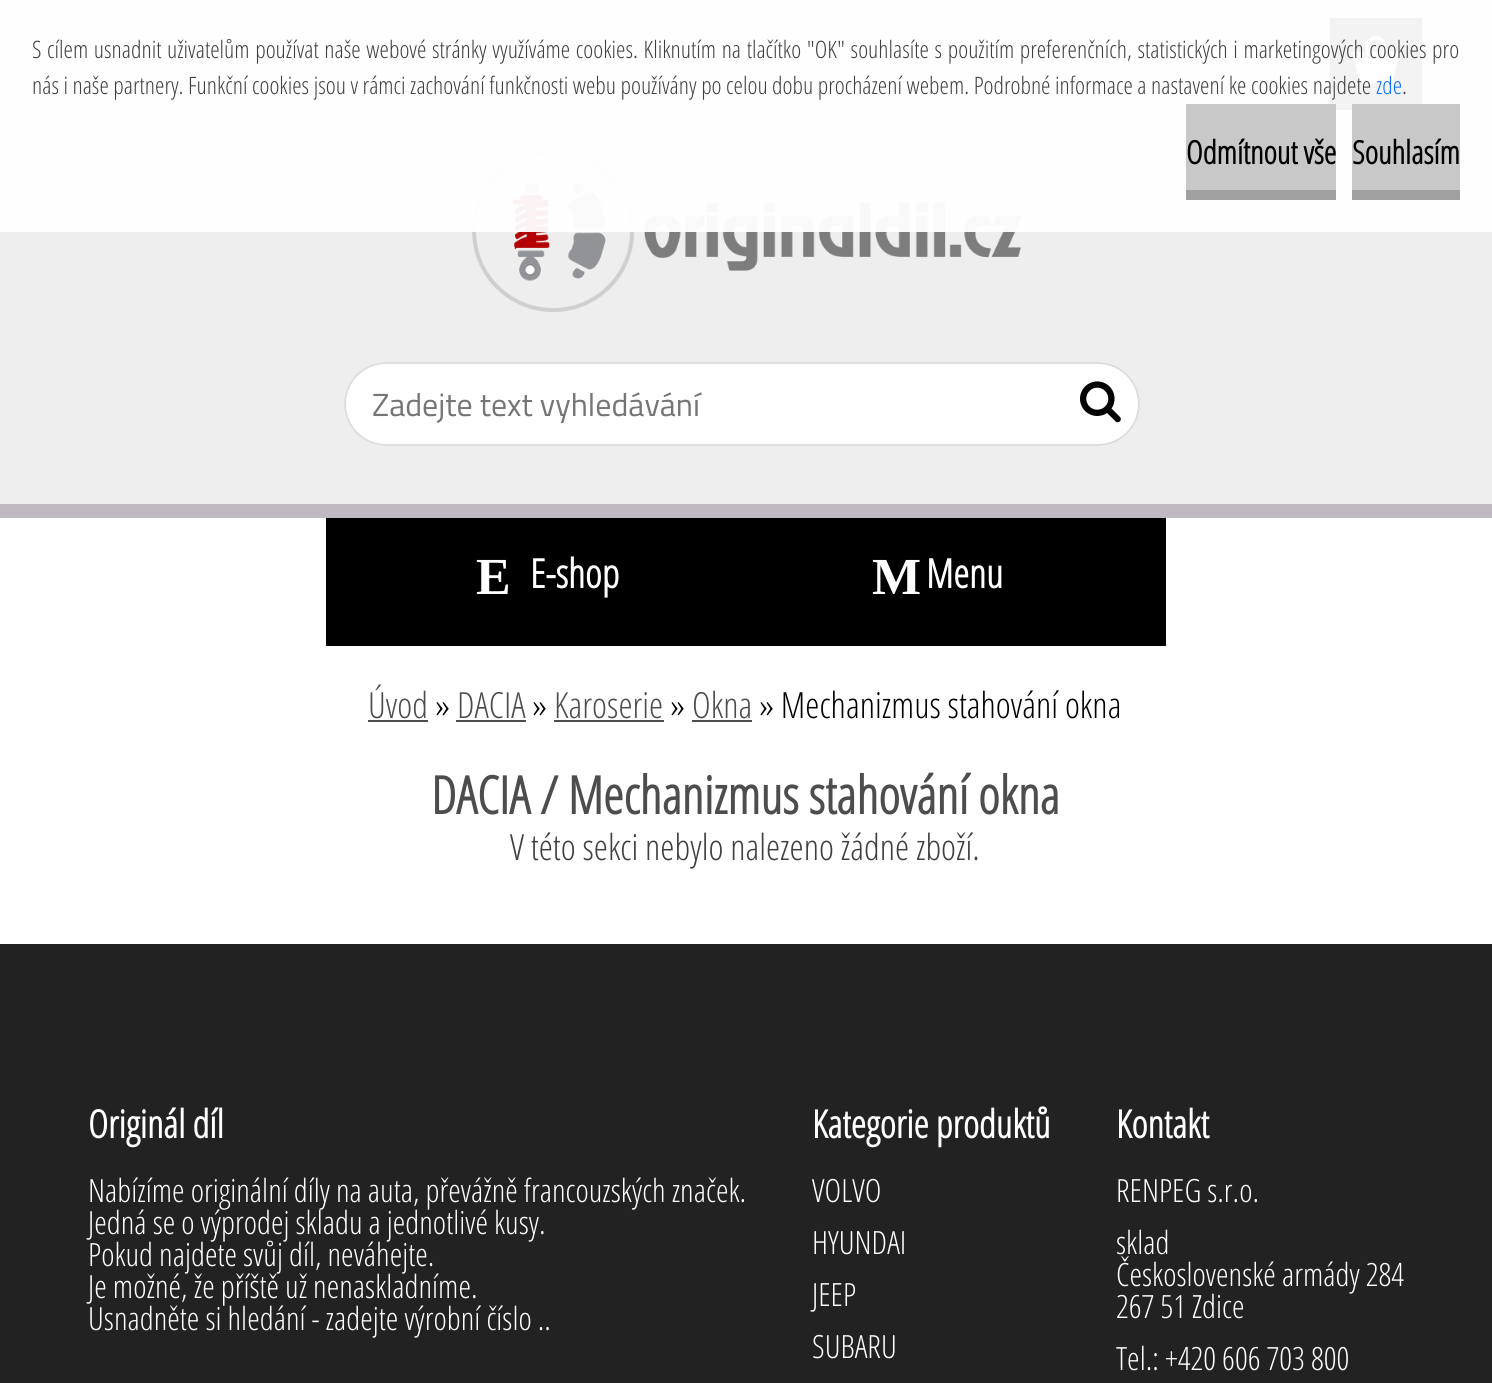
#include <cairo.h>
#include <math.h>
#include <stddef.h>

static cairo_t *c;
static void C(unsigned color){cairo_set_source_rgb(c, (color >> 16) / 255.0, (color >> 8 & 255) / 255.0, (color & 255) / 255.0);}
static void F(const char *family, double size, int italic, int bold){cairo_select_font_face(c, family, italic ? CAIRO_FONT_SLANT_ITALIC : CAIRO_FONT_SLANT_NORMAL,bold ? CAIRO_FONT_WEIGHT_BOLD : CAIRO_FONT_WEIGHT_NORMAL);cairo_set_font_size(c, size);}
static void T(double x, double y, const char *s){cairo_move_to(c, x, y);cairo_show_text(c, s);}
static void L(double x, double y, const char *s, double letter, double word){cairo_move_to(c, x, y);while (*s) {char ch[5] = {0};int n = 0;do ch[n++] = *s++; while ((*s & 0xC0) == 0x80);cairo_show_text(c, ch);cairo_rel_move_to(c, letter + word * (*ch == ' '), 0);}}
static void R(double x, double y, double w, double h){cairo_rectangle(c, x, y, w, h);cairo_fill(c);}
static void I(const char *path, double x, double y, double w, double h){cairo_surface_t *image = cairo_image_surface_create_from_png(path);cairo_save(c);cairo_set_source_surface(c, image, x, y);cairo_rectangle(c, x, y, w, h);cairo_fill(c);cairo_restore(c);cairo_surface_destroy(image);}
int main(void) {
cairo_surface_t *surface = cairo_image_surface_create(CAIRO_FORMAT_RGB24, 1492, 1383);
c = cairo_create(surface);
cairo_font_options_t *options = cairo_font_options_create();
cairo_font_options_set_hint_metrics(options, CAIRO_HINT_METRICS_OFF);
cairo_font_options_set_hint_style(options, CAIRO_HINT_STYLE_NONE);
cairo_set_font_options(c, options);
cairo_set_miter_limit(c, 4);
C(0xffffff);
cairo_paint(c);
C(0xeeeeee);
R(0,0,1492,504);
I("1.png",472,150,550,162);
C(0x000000);
R(1330,18,92,92);
I("3.png",1352,36,48,48);
cairo_set_source_rgba(c,1,1,1,0.95);
R(0,0,1492,232);
F("Open Sans Condensed Light",24,0,0);
C(0x3f3f3f);
L(32,58,"S cílem usnadnit uživatelům používat naše webové stránky využíváme cookies. Kliknutím na tlačítko \"OK\" souhlasíte s použitím preferenčních, statistických i marketingových cookies pro",0,1.1);
T(32,94,"nás i naše partnery. Funkční cookies jsou v rámci zachování funkčnosti webu používány po celou dobu procházení webem. Podrobné informace a nastavení ke cookies najdete");
C(0x0d6efd);
T(1376,94,"zde");
C(0x3f3f3f);
T(1402,94,".");
C(0xc8c8c8);
R(1186,104,150,86);
C(0xa0a0a0);
R(1186,190,150,10);
F("Open Sans Condensed",32,0,1);
C(0x000000);
T(1186,164,"Odmítnout vše");
C(0xc8c8c8);
R(1352,104,108,86);
C(0xa0a0a0);
R(1352,190,108,10);
C(0x000000);
T(1352,164,"Souhlasím");
C(0xbfbac1);
R(0,504,1492,14);
C(0xffffff);
cairo_new_path(c);
cairo_move_to(c,386,362);
cairo_line_to(c,1048,362);
cairo_line_to(c,1048,446);
cairo_line_to(c,386,446);
cairo_curve_to(c,363,446,344,427,344,404);
cairo_curve_to(c,344,381,363,362,386,362);
cairo_close_path(c);
cairo_fill(c);
C(0xdddddd);
cairo_set_fill_rule(c,CAIRO_FILL_RULE_EVEN_ODD);
cairo_new_path(c);
cairo_move_to(c,386,362);
cairo_line_to(c,1048,362);
cairo_line_to(c,1048,446);
cairo_line_to(c,386,446);
cairo_curve_to(c,363,446,344,427,344,404);
cairo_curve_to(c,344,381,363,362,386,362);
cairo_close_path(c);
cairo_move_to(c,386,364);
cairo_line_to(c,1048,364);
cairo_line_to(c,1048,444);
cairo_line_to(c,386,444);
cairo_curve_to(c,364,444,346,426,346,404);
cairo_curve_to(c,346,382,364,364,386,364);
cairo_close_path(c);
cairo_fill(c);
F("Titillium Web",32,0,0);
C(0x757575);
T(372,416,"Zadejte text vyhledávání");
C(0xffffff);
cairo_new_path(c);
cairo_move_to(c,1048,362);
cairo_line_to(c,1098,362);
cairo_curve_to(c,1121,362,1140,381,1140,404);
cairo_curve_to(c,1140,427,1121,446,1098,446);
cairo_line_to(c,1048,446);
cairo_close_path(c);
cairo_fill(c);
C(0xdddddd);
cairo_new_path(c);
cairo_move_to(c,1048,362);
cairo_line_to(c,1098,362);
cairo_curve_to(c,1121,362,1140,381,1140,404);
cairo_curve_to(c,1140,427,1121,446,1098,446);
cairo_line_to(c,1048,446);
cairo_close_path(c);
cairo_move_to(c,1048,364);
cairo_line_to(c,1098,364);
cairo_curve_to(c,1120,364,1138,382,1138,404);
cairo_curve_to(c,1138,426,1120,444,1098,444);
cairo_line_to(c,1048,444);
cairo_close_path(c);
cairo_fill(c);
I("2.png",1080,381,41,42);
C(0x000000);
R(326,518,840,128);
F("Liberation Serif",52,0,1);
C(0xffffff);
T(476,594,"E");
F("Open Sans Condensed",40,0,1);
T(530,588,"E-shop");
F("Liberation Serif",52,0,1);
T(872,594,"M");
F("Open Sans Condensed",40,0,1);
T(926,588,"Menu");
F("Open Sans Condensed Light",36,0,0);
C(0x4d4d4d);
T(368,718,"Úvod");
R(368,720,60,2);
C(0x000000);
T(435,718,"»");
C(0x4d4d4d);
T(457,718,"DACIA");
R(456,720,70,2);
C(0x000000);
T(532,718,"»");
C(0x4d4d4d);
T(554,718,"Karoserie");
R(554,720,110,2);
C(0x000000);
T(670,718,"»");
C(0x4d4d4d);
T(692,718,"Okna");
R(692,720,60,2);
C(0x000000);
T(759,718,"» Mechanizmus stahování okna");
F("Open Sans Condensed",52,0,1);
C(0x4d4d4d);
T(431,814,"DACIA / Mechanizmus stahování okna");
F("Open Sans Condensed Light",36,0,0);
C(0x3f3f3f);
T(510,860,"V této sekci nebylo nalezeno žádné zboží.");
C(0x222222);
R(0,944,1492,439);
F("Open Sans Condensed",38.5,0,1);
C(0xffffff);
T(88,1138,"Originál díl");
F("Open Sans Condensed Light",32,0,0);
T(88,1202,"Nabízíme originální díly na auta, převážně francouzských značek.");
T(88,1234,"Jedná se o výprodej skladu a jednotlivé kusy.");
T(88,1266,"Pokud najdete svůj díl, neváhejte.");
T(88,1298,"Je možné, že příště už nenaskladníme.");
T(88,1330,"Usnadněte si hledání - zadejte výrobní číslo ..");
F("Open Sans Condensed",38.5,0,1);
T(812,1138,"Kategorie produktů");
F("Open Sans Condensed Light",32,0,0);
T(812,1202,"VOLVO");
T(812,1254,"HYUNDAI");
T(812,1306,"JEEP");
T(812,1358,"SUBARU");
F("Open Sans Condensed",38.5,0,1);
T(1116,1138,"Kontakt");
F("Open Sans Condensed Light",32,0,0);
T(1116,1202,"RENPEG s.r.o.");
T(1116,1254,"sklad");
T(1116,1286,"Československé armády 284");
T(1116,1318,"267 51 Zdice");
T(1116,1370,"Tel.: +420 606 703 800");
cairo_surface_write_to_png(surface, "o.png");
cairo_font_options_destroy(options);
cairo_destroy(c);
cairo_surface_destroy(surface);
return 0;
}
